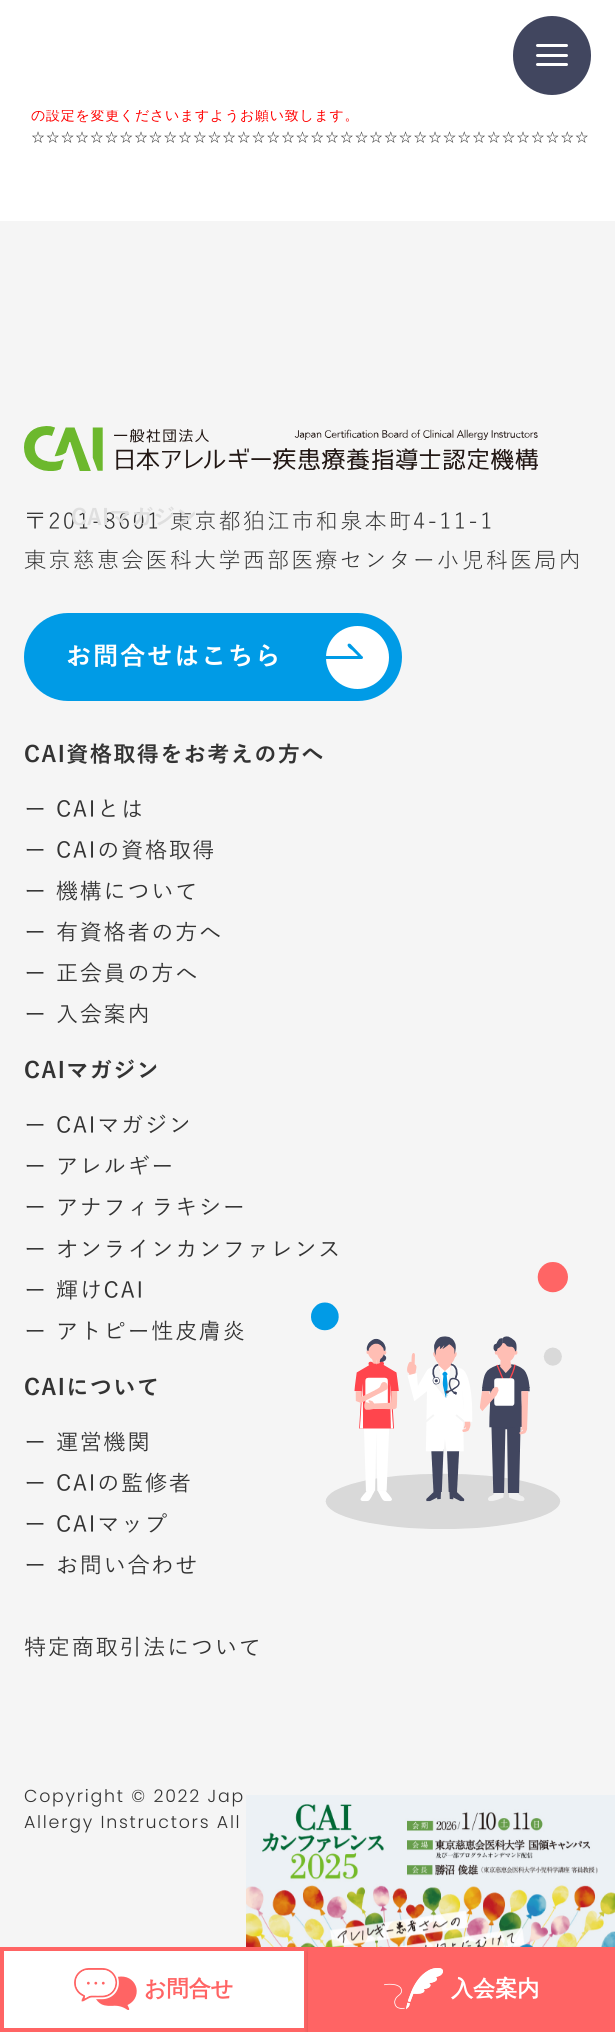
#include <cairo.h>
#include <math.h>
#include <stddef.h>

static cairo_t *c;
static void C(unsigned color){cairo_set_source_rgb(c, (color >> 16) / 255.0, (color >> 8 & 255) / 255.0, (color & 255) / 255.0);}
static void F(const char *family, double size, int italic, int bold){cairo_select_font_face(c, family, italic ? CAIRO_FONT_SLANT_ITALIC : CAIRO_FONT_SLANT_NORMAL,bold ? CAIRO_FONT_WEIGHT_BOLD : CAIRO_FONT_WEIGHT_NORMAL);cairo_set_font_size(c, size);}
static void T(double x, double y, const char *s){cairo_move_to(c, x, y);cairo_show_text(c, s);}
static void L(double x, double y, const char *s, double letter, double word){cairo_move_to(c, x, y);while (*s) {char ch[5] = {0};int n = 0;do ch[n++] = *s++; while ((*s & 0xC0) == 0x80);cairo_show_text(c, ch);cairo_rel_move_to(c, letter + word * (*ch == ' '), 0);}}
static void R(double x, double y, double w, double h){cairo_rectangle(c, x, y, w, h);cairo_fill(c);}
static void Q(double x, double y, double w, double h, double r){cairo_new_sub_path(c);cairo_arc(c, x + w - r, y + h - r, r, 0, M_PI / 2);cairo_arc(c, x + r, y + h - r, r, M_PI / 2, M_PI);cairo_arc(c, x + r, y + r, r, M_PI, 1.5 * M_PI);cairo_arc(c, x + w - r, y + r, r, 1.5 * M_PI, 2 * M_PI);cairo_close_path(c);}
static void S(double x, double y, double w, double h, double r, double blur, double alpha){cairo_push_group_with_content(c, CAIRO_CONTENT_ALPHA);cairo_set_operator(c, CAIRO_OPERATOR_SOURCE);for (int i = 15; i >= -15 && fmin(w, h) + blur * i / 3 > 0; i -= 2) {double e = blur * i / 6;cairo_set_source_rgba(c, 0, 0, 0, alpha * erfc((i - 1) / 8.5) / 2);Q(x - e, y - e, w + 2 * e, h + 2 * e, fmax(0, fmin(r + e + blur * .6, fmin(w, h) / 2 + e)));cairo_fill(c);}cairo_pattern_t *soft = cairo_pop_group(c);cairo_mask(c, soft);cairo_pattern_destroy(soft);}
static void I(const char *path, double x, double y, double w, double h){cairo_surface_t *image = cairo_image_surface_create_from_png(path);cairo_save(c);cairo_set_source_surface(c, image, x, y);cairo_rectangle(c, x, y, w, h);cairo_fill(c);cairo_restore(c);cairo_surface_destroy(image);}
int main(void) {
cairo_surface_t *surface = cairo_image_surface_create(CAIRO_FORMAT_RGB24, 615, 2032);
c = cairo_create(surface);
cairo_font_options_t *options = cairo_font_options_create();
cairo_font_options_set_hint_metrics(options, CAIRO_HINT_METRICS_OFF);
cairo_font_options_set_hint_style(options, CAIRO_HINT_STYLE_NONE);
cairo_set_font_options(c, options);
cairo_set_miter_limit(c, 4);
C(0xffffff);
cairo_paint(c);
F("WenQuanYi Zen Hei Medium",14,0,0);
C(0xff0000);
L(31,120,"の設定を変更くださいますようお願い致します。",.7,0);
C(0x333333);
L(31,142,"☆☆☆☆☆☆☆☆☆☆☆☆☆☆☆☆☆☆☆☆☆☆☆☆☆☆☆☆☆☆☆☆☆☆☆☆☆☆",.7,0);
C(0xffffff);
R(47,108,291,2);
C(0x41465f);
Q(513,16,78,79,39);
cairo_fill(c);
C(0xffffff);
Q(536,44,32,3,1.5);
cairo_fill(c);
Q(536,54,32,3,1.5);
cairo_fill(c);
Q(536,63,32,3,1.5);
cairo_fill(c);
C(0xf5f5f5);
R(0,221,615,1726);
F("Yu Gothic",22.1,0,0);
C(0x333333);
L(24,529,"〒201-8601 東京都狛江市和泉本町4-11-1",2.2,0);
F("Yu Gothic",22.1,0,1);
C(0xdfdfdf);
T(71,525,"CAIマガジン");
I("1.png",246,1795,369,152);
I("2.png",24,426,514,45);
F("Yu Gothic",22.1,0,0);
C(0x333333);
L(24,568,"東京慈恵会医科大学西部医療センター小児科医局内",2.2,0);
C(0x009be6);
Q(24,613,378,88,44);
cairo_fill(c);
F("Yu Gothic",25.25,0,1);
C(0xffffff);
L(66,665,"お問合せはこちら",1.75,0);
cairo_new_path(c);
cairo_arc(c,357.5,657.5,31.5,0,2 * M_PI);
cairo_fill(c);
C(0x009be6);
Q(323,656,40,3,1.5);
cairo_fill(c);
cairo_new_path(c);
cairo_move_to(c,350.5,644);
cairo_line_to(c,361.5,655.5);
cairo_line_to(c,362,657);
cairo_curve_to(c,361,659.5,358,656.5,357.5,655.5);
cairo_line_to(c,352,650);
cairo_curve_to(c,351,649.5,346,646,348,644);
cairo_curve_to(c,348.5,643.5,349.5,643.5,350.5,644);
cairo_close_path(c);
cairo_fill(c);
F("Yu Gothic",22.1,0,1);
C(0x333333);
L(24,762,"CAI資格取得をお考えの方へ",1.4,0);
F("Yu Gothic Medium",22.1,0,0);
L(24,817,"ー CAIとは",1.75,0);
L(24,858,"ー CAIの資格取得",1.75,0);
L(24,899,"ー 機構について",1.75,0);
L(24,940,"ー 有資格者の方へ",1.75,0);
L(24,981,"ー 正会員の方へ",1.75,0);
L(24,1022,"ー 入会案内",1.75,0);
F("Yu Gothic",22.1,0,1);
L(24,1078,"CAIマガジン",1.4,0);
F("Yu Gothic Medium",22.1,0,0);
L(24,1133,"ー CAIマガジン",1.75,0);
L(24,1174,"ー アレルギー",1.75,0);
L(24,1215,"ー アナフィラキシー",1.75,0);
L(24,1257,"ー オンラインカンファレンス",1.75,0);
L(24,1298,"ー 輝けCAI",1.75,0);
L(24,1339,"ー アトピー性皮膚炎",1.75,0);
F("Yu Gothic",22.1,0,1);
L(24,1395,"CAIについて",1.4,0);
F("Yu Gothic Medium",22.1,0,0);
L(24,1450,"ー 運営機関",1.75,0);
L(24,1491,"ー CAIの監修者",1.75,0);
L(24,1532,"ー CAIマップ",1.75,0);
L(24,1573,"ー お問い合わせ",1.75,0);
L(24,1655,"特定商取引法について",1.75,0);
F("Poppins Light",17.4,0,0);
L(24,1802,"Copyright © 2022 Jap",1.75,0);
L(24,1828,"Allergy Instructors All",1.75,0);
I("3.png",311,1262,257,267);
cairo_rectangle(c,2,1949,304,81);
C(0xff6464);
cairo_set_line_width(c,4);
cairo_stroke(c);
I("4.png",74,1968,63,42);
F("WenQuanYi Zen Hei",22.1,0,1);
T(144,1996,"お問合せ");
C(0x000000);
S(308,1952,307,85,0,2.5,.16);
C(0xff6464);
R(308,1947,307,85);
I("5.png",384,1968,59,42);
C(0xffffff);
T(451,1996,"入会案内");
cairo_surface_write_to_png(surface, "o.png");
cairo_font_options_destroy(options);
cairo_destroy(c);
cairo_surface_destroy(surface);
return 0;
}
